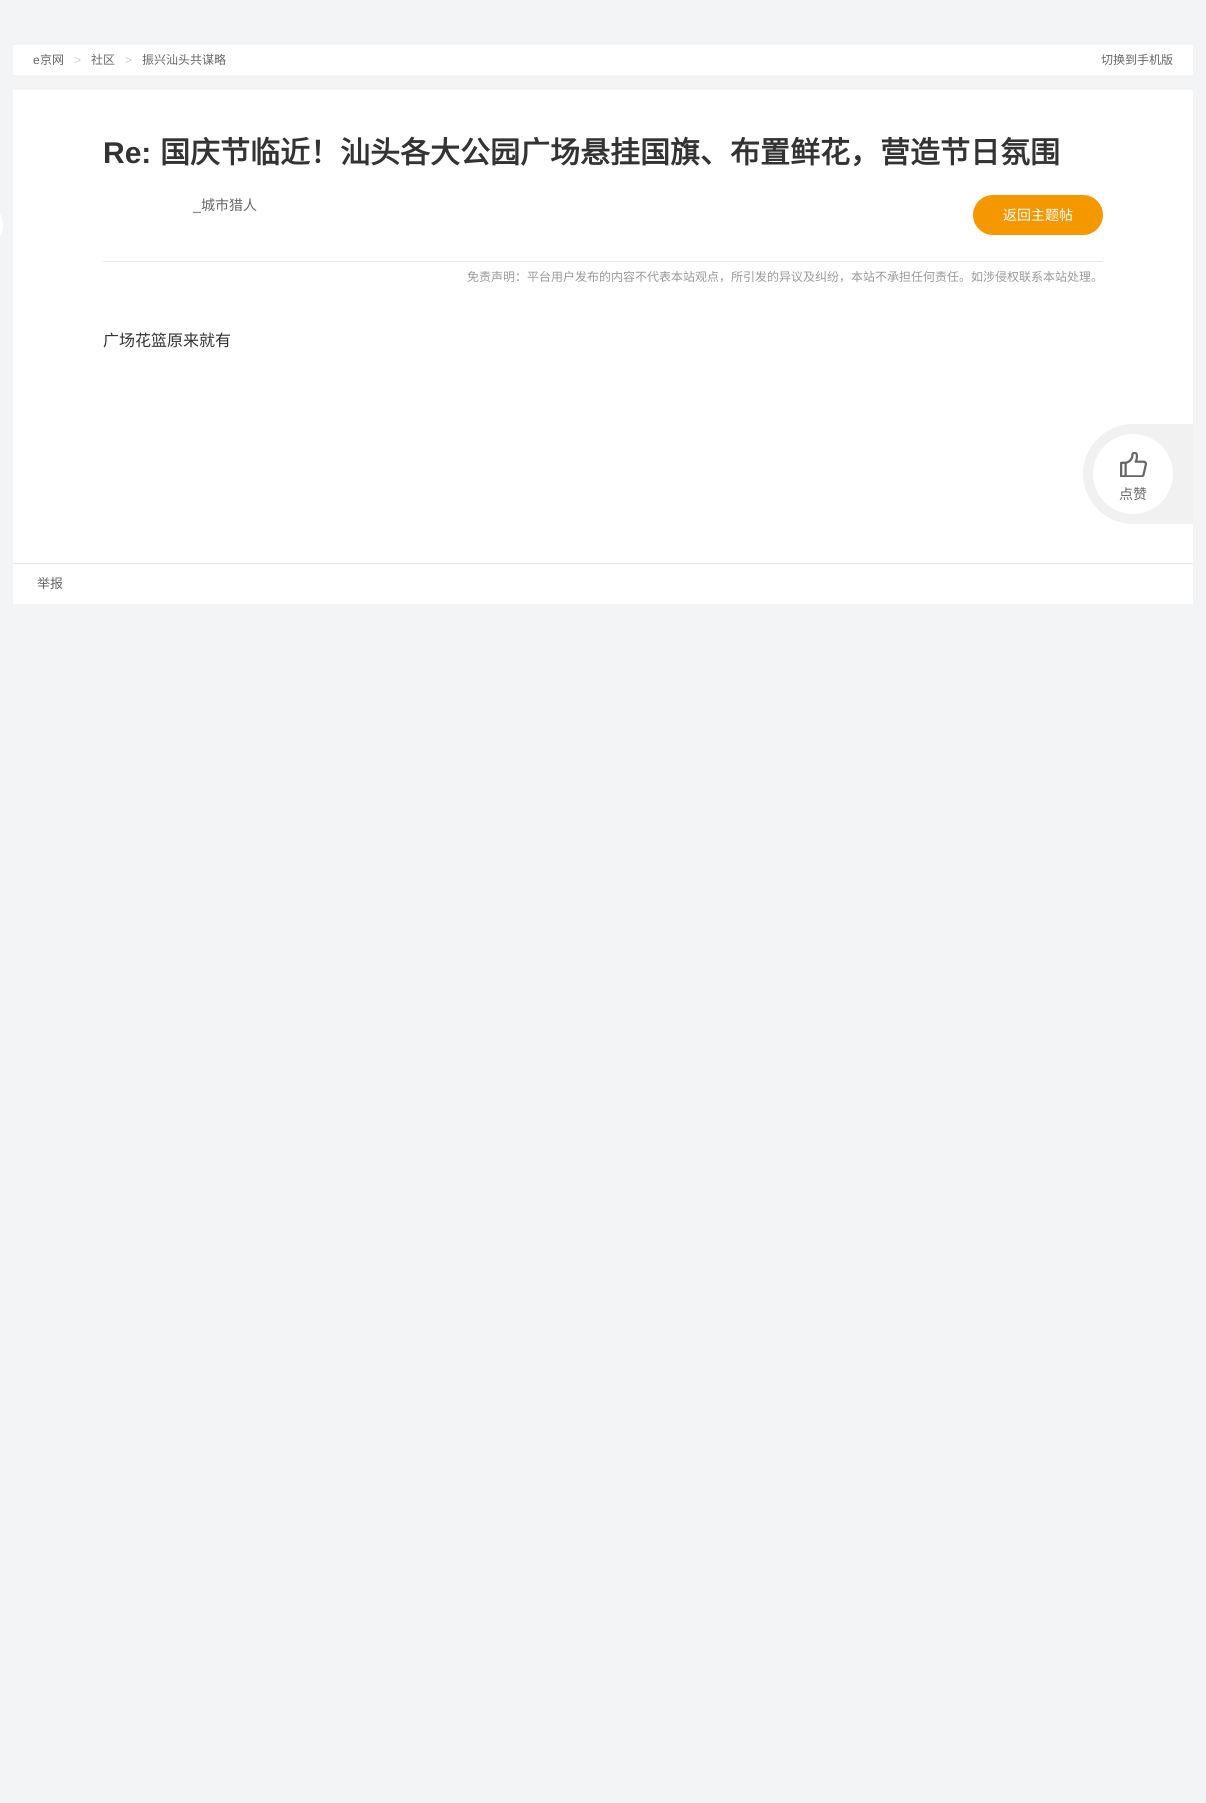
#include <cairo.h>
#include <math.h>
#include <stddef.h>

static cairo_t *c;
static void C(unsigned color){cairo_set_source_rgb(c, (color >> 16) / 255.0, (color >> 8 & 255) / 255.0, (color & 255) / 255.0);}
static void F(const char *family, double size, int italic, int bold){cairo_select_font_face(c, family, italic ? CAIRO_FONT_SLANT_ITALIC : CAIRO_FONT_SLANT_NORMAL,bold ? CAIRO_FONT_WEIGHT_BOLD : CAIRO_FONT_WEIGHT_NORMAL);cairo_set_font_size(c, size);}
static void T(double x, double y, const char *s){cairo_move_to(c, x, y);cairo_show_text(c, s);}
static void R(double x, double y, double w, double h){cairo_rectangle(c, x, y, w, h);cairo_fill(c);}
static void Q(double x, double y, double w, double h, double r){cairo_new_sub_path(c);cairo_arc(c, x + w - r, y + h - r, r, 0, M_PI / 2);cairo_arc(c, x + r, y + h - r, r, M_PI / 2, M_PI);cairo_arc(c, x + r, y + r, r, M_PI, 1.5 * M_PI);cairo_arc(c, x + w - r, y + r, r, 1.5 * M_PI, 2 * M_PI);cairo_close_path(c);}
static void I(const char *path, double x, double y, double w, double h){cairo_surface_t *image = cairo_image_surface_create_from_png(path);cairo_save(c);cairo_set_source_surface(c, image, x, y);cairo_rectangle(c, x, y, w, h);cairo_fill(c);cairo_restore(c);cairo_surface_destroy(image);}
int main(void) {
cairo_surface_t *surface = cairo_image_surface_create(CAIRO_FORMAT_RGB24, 1206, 1803);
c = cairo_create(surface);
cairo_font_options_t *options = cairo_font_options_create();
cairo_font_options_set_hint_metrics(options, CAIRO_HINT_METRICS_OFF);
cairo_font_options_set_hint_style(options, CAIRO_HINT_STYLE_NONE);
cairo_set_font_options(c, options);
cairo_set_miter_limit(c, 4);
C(0xf3f4f6);
cairo_paint(c);
C(0xffffff);
R(13,45,1180,30);
F("Liberation Sans",12,0,0);
C(0x666666);
T(33,64,"e");
F("Noto Sans CJK SC",12,0,0);
T(40,64,"京网");
F("Liberation Sans",12,0,0);
C(0xcccccc);
T(74,64,">");
F("Noto Sans CJK SC",12,0,0);
C(0x666666);
T(91,64,"社区");
F("Liberation Sans",12,0,0);
C(0xcccccc);
T(125,64,">");
F("Noto Sans CJK SC",12,0,0);
C(0x666666);
T(142,64,"振兴汕头共谋略");
T(1101,64,"切换到手机版");
C(0xffffff);
R(13,90,1180,514);
F("Liberation Sans",30,0,1);
C(0x333333);
T(103,163,"Re:");
F("Noto Sans CJK SC",30,0,1);
T(160,163,"国庆节临近！汕头各大公园广场悬挂国旗、布置鲜花，营造节日氛围");
C(0xffffff);
Q(-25,200,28,50,25);
cairo_fill(c);
C(0xe8e8e8);
R(103,261,1000,1);
F("Liberation Sans",14,0,0);
C(0x666666);
T(193,210,"_");
F("Noto Sans CJK SC",14,0,0);
T(201,210,"城市猎人");
C(0xf59800);
Q(973,195,130,40,20);
cairo_fill(c);
C(0xffffff);
T(1003,220,"返回主题帖");
F("Noto Sans CJK SC",12,0,0);
C(0x999999);
T(467,281,"免责声明：平台用户发布的内容不代表本站观点，所引发的异议及纠纷，本站不承担任何责任。如涉侵权联系本站处理。");
F("Noto Sans CJK SC",16,0,0);
C(0x333333);
T(103,346,"广场花篮原来就有");
C(0xf1f1f1);
cairo_new_path(c);
cairo_move_to(c,1133,424);
cairo_line_to(c,1193,424);
cairo_line_to(c,1193,524);
cairo_line_to(c,1133,524);
cairo_curve_to(c,1105.5,524,1083,501.5,1083,474);
cairo_curve_to(c,1083,446.5,1105.5,424,1133,424);
cairo_close_path(c);
cairo_fill(c);
C(0xffffff);
cairo_arc(c,1133,474,40,0,2 * M_PI);
cairo_fill(c);
I("1.png",1120,452,27,25);
F("Noto Sans CJK SC",14,0,0);
C(0x666666);
T(1119,499,"点赞");
C(0xe8e8e8);
R(13,563,1180,1);
F("Noto Sans CJK SC",13,0,0);
C(0x666666);
T(37,588,"举报");
cairo_surface_write_to_png(surface, "o.png");
cairo_font_options_destroy(options);
cairo_destroy(c);
cairo_surface_destroy(surface);
return 0;
}
